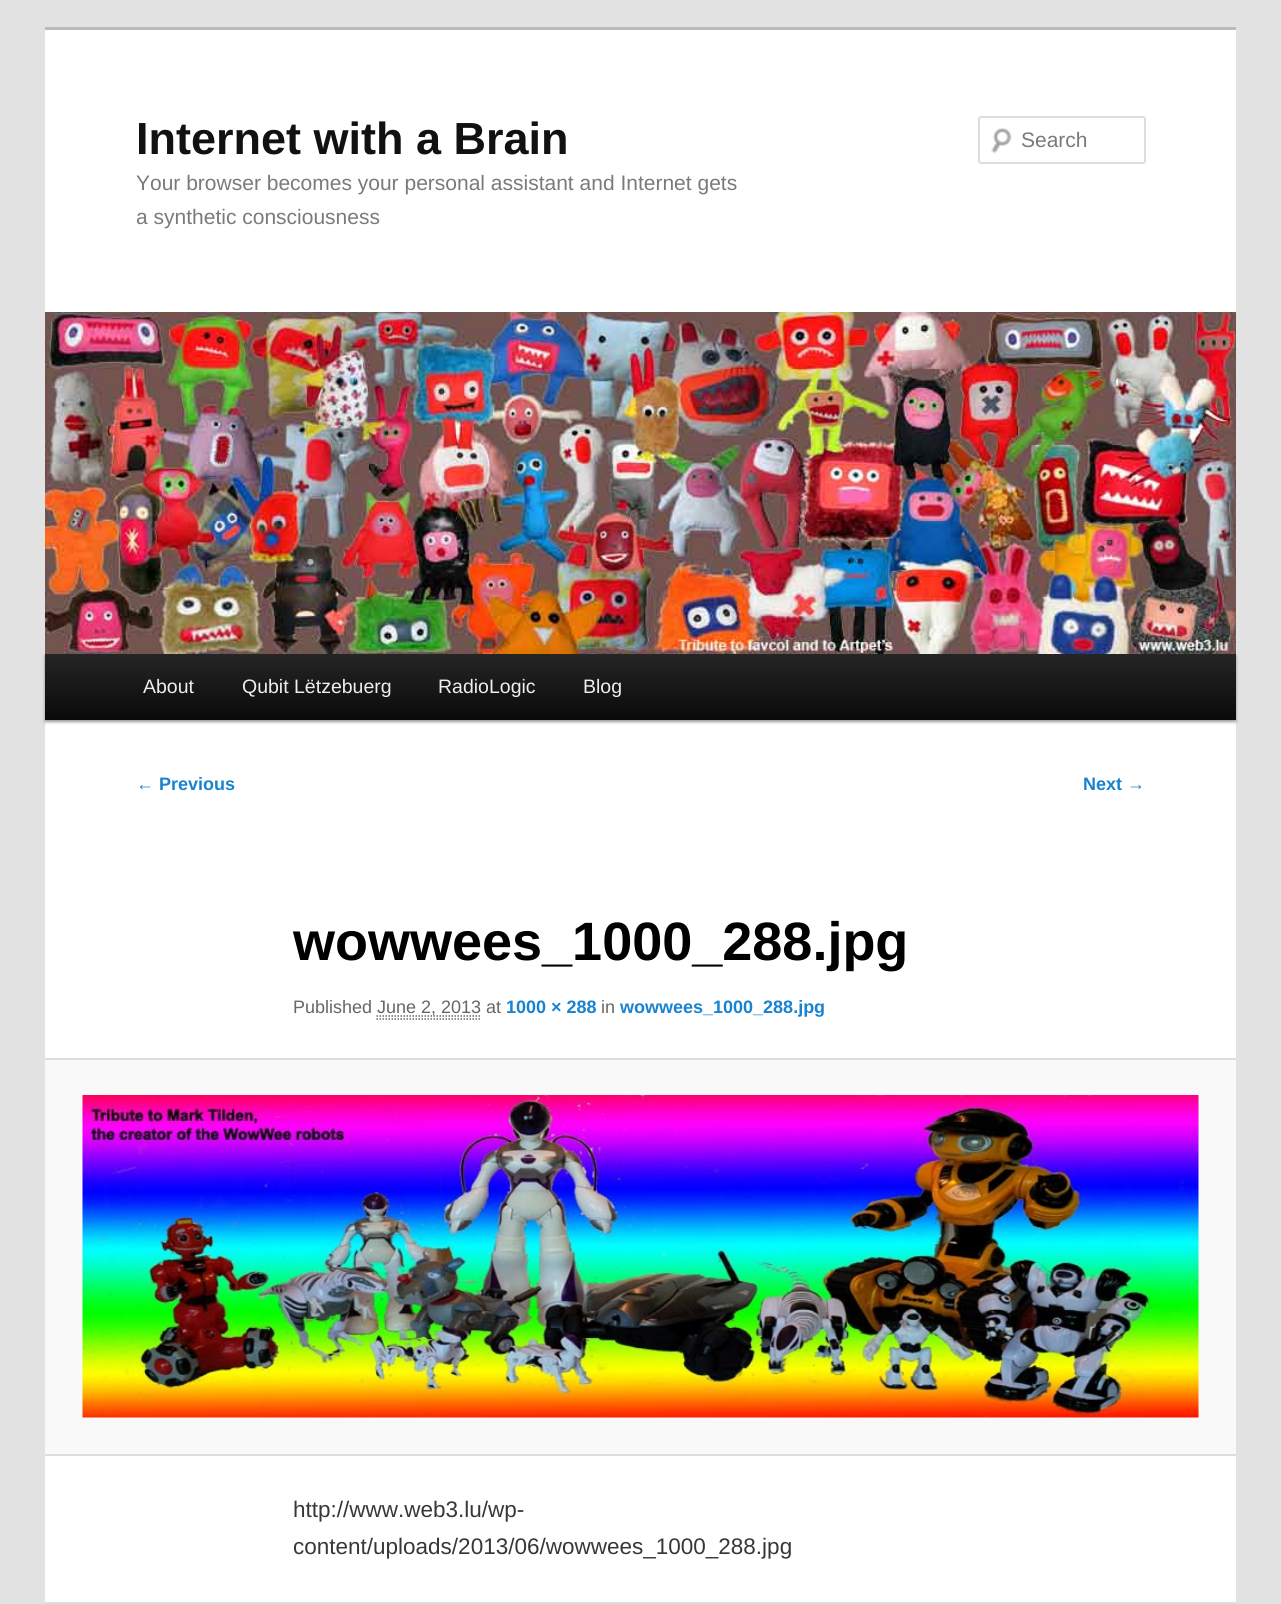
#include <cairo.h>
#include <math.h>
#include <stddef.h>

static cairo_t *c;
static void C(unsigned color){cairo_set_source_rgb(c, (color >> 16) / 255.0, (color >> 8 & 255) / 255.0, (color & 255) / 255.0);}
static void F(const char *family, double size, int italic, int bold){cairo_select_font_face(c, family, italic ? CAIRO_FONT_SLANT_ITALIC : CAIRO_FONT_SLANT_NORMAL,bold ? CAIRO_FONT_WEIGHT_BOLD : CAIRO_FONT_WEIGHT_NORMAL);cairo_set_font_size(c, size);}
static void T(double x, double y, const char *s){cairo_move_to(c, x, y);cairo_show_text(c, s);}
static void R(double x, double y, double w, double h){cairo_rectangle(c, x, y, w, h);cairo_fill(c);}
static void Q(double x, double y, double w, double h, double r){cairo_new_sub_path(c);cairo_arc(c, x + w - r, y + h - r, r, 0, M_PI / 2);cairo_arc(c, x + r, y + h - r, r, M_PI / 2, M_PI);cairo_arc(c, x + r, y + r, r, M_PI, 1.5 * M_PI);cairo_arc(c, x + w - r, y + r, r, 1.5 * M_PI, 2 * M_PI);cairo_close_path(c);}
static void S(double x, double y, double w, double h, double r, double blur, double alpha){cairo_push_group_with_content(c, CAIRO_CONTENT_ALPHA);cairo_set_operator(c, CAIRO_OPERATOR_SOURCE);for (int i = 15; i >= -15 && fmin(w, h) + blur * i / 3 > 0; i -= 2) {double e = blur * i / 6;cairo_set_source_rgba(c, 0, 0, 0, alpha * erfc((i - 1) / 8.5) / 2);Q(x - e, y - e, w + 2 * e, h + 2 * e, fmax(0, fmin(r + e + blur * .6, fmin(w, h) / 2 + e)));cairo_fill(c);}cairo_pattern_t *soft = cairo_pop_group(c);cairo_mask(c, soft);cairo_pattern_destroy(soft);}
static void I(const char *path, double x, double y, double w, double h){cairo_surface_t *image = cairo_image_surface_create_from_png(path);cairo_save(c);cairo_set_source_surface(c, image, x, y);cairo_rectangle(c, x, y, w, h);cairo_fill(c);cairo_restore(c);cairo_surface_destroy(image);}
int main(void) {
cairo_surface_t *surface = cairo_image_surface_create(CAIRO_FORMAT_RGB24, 1281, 1604);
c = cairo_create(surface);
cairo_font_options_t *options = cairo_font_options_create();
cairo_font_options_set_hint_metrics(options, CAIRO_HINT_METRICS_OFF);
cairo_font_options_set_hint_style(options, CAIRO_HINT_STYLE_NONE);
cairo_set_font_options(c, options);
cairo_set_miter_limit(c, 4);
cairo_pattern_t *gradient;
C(0xe2e2e2);
cairo_paint(c);
C(0xffffff);
R(45,30,1191,1572);
C(0xbbbbbb);
R(45,27,1191,3);
F("Liberation Sans",45,0,1);
C(0x111111);
T(136,154,"Internet with a Brain");
F("Liberation Sans",21,0,0);
C(0x7a7a7a);
T(136,190,"Your browser becomes your personal assistant and Internet gets");
T(136,224,"a synthetic consciousness");
I("1.png",991,127,21,27);
Q(979,117,166,46,2);
C(0xdddddd);
cairo_stroke(c);
C(0x7a7a7a);
T(1021,147,"Search");
C(0x000000);
S(45,656,1191,66,0,1.5,.4);
I("2.png",45,312,1191,342);
gradient = cairo_pattern_create_linear(641,654,641,720);
cairo_pattern_add_color_stop_rgba(gradient,0,0.145,0.145,0.145,1);
cairo_pattern_add_color_stop_rgba(gradient,1,0.039,0.039,0.039,1);
cairo_set_source(c,gradient);
cairo_pattern_destroy(gradient);
R(45,654,1191,66);
F("Liberation Sans",19.5,0,0);
C(0xeeeeee);
T(143,693,"About");
T(242,693,"Qubit Lëtzebuerg");
T(438,693,"RadioLogic");
T(583,693,"Blog");
F("Liberation Sans",18,0,1);
C(0x1982d1);
T(136,790,"← Previous");
T(1083,790,"Next →");
F("Liberation Sans",54,0,1);
C(0x000000);
T(293,960,"wowwees_1000_288.jpg");
F("Liberation Sans",18,0,0);
C(0x666666);
T(293,1013,"Published");
cairo_new_path(c);
cairo_move_to(c,376.5,1016);
cairo_line_to(c,481,1016);
cairo_set_line_width(c,1.5);
cairo_set_dash(c,(double[]){1.5,1.5},2,0);
cairo_stroke(c);
T(377,1013,"June 2, 2013 at");
cairo_new_path(c);
cairo_move_to(c,376.5,1019);
cairo_line_to(c,481.5,1019);
cairo_stroke(c);
F("Liberation Sans",18,0,1);
C(0x1982d1);
T(506,1013,"1000 × 288");
F("Liberation Sans",18,0,0);
C(0x666666);
T(601,1013,"in");
F("Liberation Sans",18,0,1);
C(0x1982d1);
T(620,1013,"wowwees_1000_288.jpg");
C(0xf9f9f9);
R(45,1060,1191,394);
C(0xdddddd);
R(45,1058,1191,2);
R(45,1454,1191,2);
I("3.png",82,1095,1117,323);
F("Liberation Sans",22.5,0,0);
C(0x373737);
T(293,1517,"http://www.web3.lu/wp-");
T(293,1554,"content/uploads/2013/06/wowwees_1000_288.jpg");
C(0xdddddd);
R(45,1602,1191,2);
cairo_surface_write_to_png(surface, "o.png");
cairo_font_options_destroy(options);
cairo_destroy(c);
cairo_surface_destroy(surface);
return 0;
}
